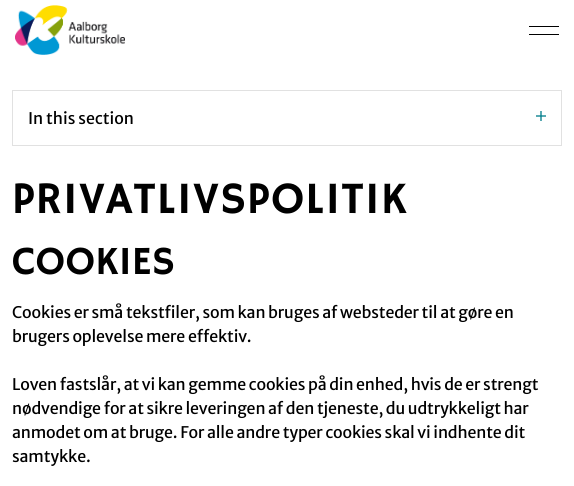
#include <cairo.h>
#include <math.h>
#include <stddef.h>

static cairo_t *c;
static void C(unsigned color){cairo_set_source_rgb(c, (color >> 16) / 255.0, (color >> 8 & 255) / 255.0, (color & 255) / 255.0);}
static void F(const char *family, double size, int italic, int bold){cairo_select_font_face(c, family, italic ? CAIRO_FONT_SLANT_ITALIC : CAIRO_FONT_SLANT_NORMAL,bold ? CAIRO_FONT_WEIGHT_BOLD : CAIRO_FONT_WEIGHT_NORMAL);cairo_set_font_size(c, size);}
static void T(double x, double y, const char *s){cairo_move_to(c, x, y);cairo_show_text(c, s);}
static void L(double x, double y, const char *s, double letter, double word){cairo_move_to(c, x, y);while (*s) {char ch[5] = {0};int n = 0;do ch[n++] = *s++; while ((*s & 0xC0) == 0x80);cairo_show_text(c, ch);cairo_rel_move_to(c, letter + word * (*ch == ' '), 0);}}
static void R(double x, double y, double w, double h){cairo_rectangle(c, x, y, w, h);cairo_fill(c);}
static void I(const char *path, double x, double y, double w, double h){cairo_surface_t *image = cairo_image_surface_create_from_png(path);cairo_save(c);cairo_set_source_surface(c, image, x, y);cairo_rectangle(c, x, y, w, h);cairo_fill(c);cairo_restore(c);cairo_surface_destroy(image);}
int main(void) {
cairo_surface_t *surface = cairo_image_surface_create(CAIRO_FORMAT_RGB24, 574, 486);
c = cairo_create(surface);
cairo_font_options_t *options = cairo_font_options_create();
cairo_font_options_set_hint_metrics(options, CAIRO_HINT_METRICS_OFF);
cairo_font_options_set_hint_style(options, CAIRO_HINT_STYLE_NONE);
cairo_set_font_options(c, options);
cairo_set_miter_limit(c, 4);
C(0xffffff);
cairo_paint(c);
I("1.png",15,5,110,50);
C(0x000000);
R(529,26,30,1);
R(529,34,30,1);
cairo_rectangle(c,12.5,90.5,549,55);
C(0xe1e1e1);
cairo_set_line_width(c,1);
cairo_stroke(c);
F("Merriweather Sans",16,0,0);
C(0x000000);
T(28,124,"In this section");
I("2.png",536,111,10,10);
F("Hammersmith One",45,0,0);
L(12,213,"PRIVATLIVSPOLITIK",1,0);
F("Hammersmith One",40,0,0);
T(12,274,"COOKIES");
F("Merriweather Sans",16,0,0);
L(12,318,"Cookies er små tekstfiler, som kan bruges af websteder til at gøre en",-.15,0);
L(12,342,"brugers oplevelse mere effektiv.",-.15,0);
L(12,390,"Loven fastslår, at vi kan gemme cookies på din enhed, hvis de er strengt",-.15,0);
L(12,414,"nødvendige for at sikre leveringen af den tjeneste, du udtrykkeligt har",-.15,0);
L(12,438,"anmodet om at bruge. For alle andre typer cookies skal vi indhente dit",-.15,0);
L(12,462,"samtykke.",-.15,0);
cairo_surface_write_to_png(surface, "o.png");
cairo_font_options_destroy(options);
cairo_destroy(c);
cairo_surface_destroy(surface);
return 0;
}
